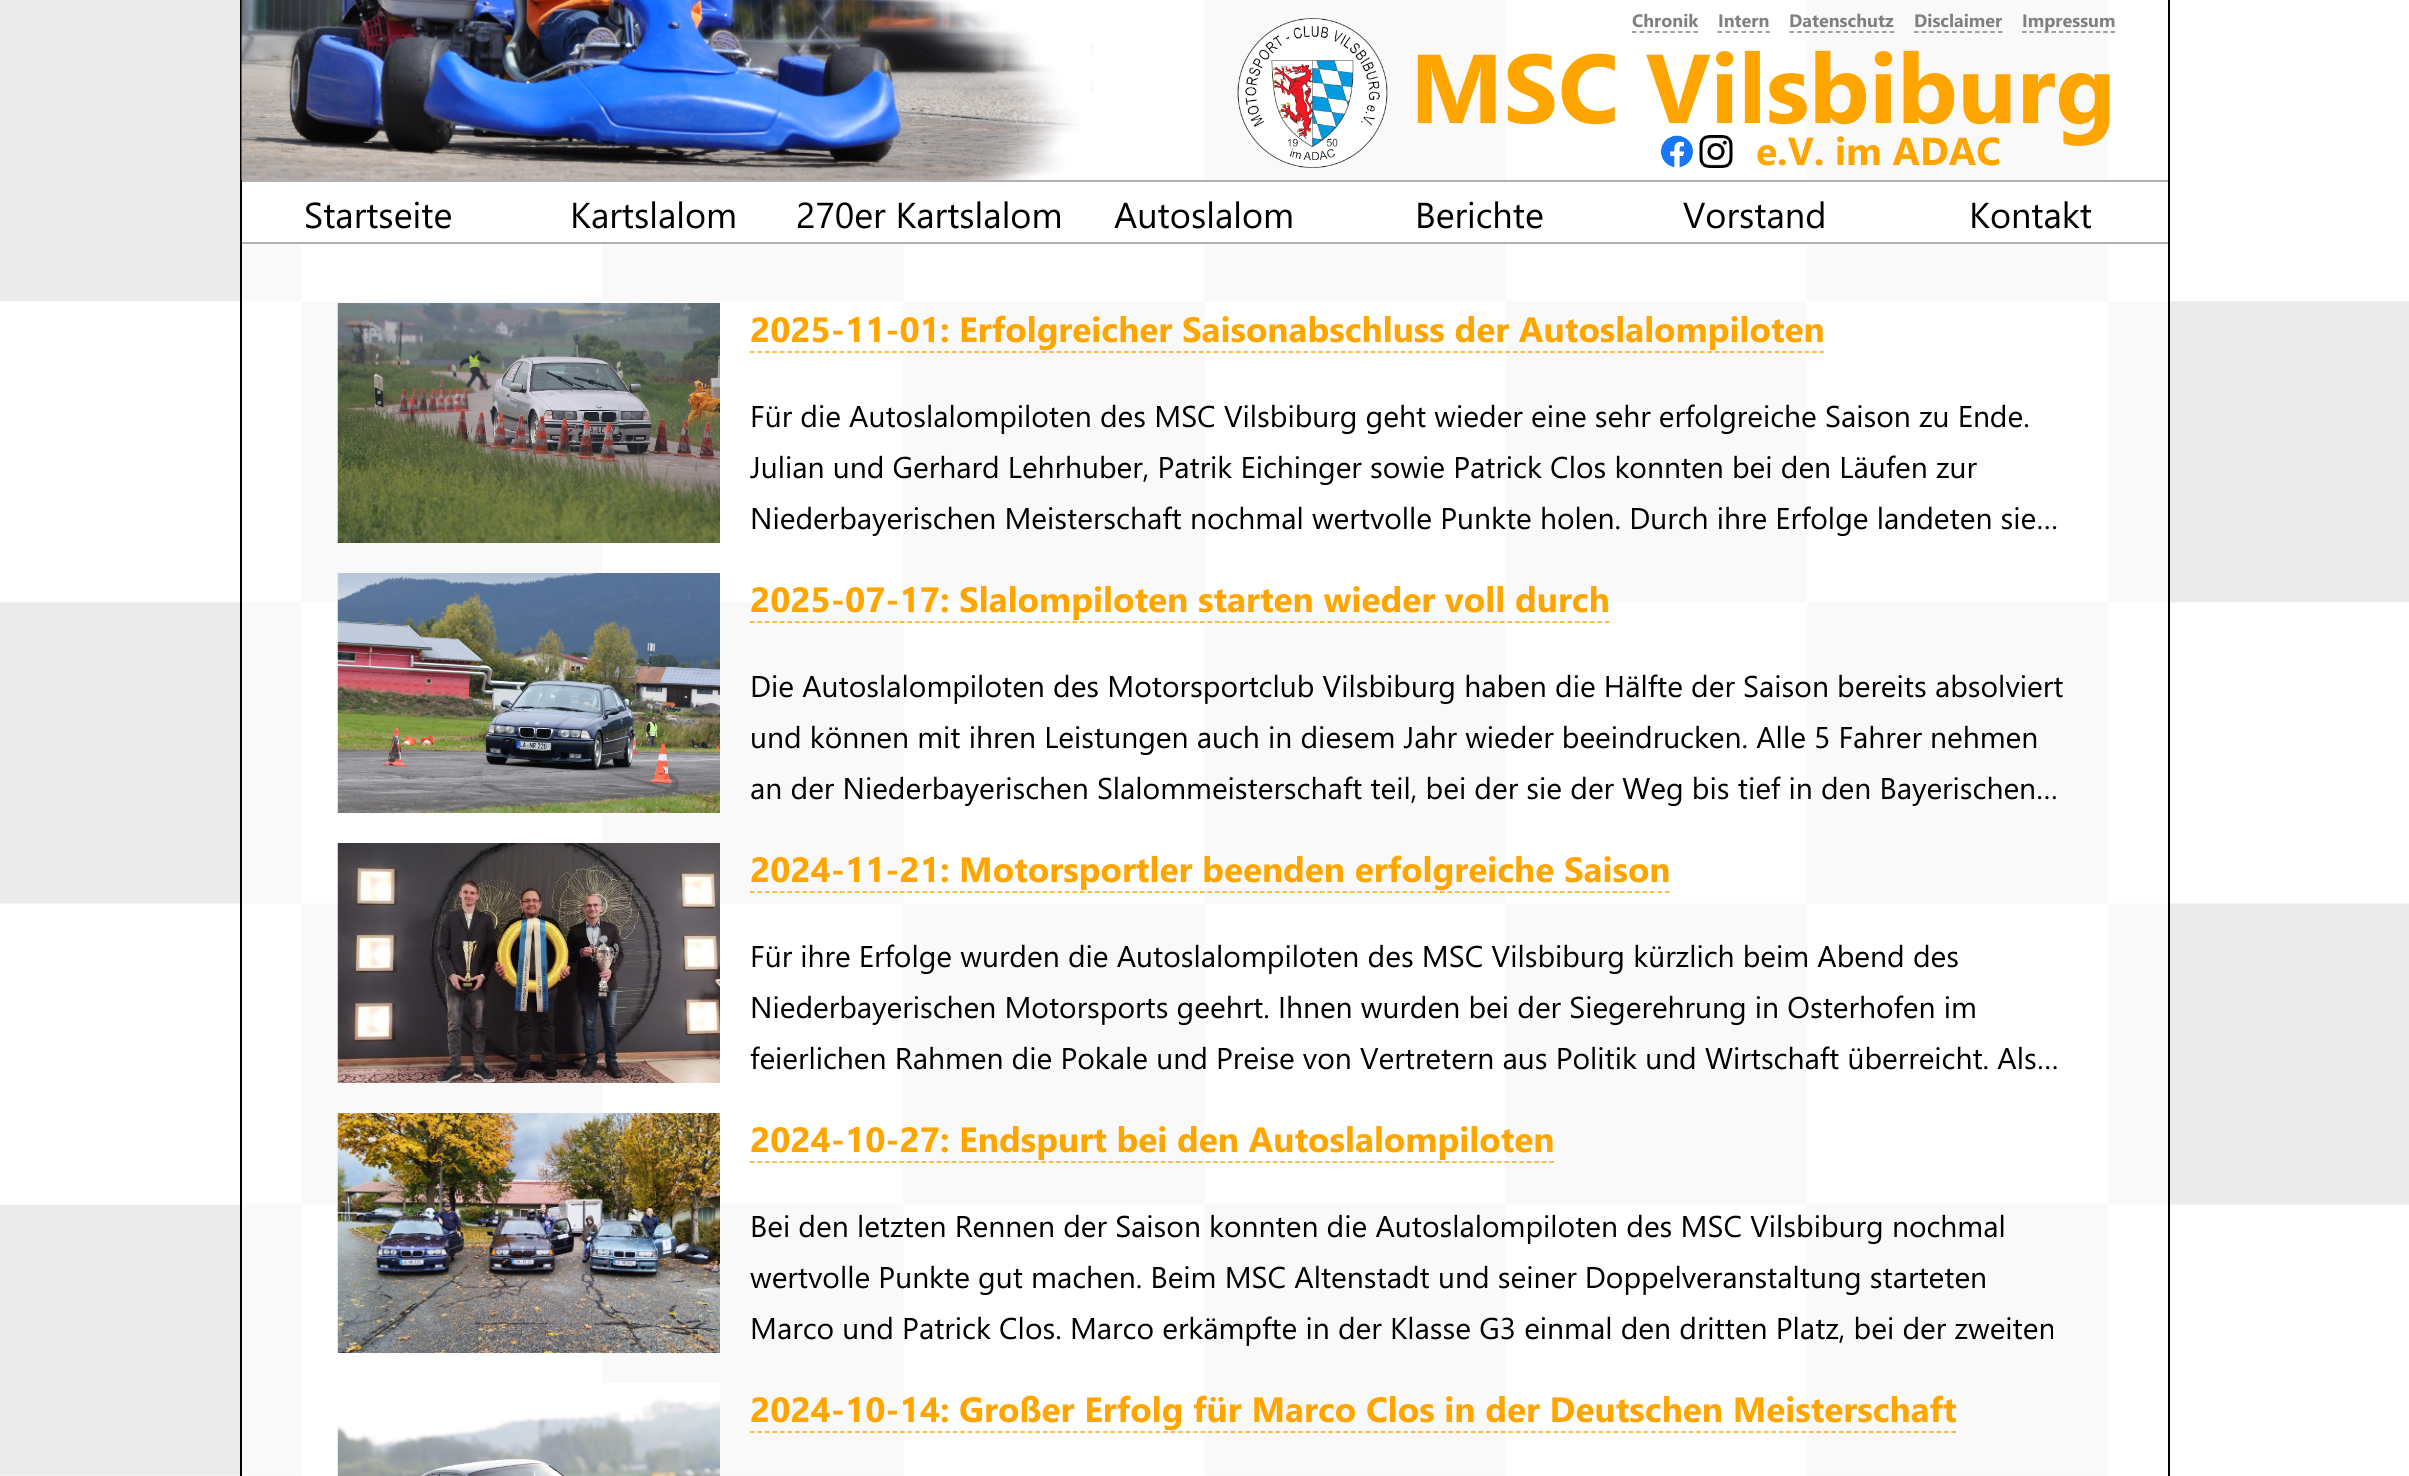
#include <cairo.h>
#include <math.h>
#include <stddef.h>

static cairo_t *c;
static void C(unsigned color){cairo_set_source_rgb(c, (color >> 16) / 255.0, (color >> 8 & 255) / 255.0, (color & 255) / 255.0);}
static void F(const char *family, double size, int italic, int bold){cairo_select_font_face(c, family, italic ? CAIRO_FONT_SLANT_ITALIC : CAIRO_FONT_SLANT_NORMAL,bold ? CAIRO_FONT_WEIGHT_BOLD : CAIRO_FONT_WEIGHT_NORMAL);cairo_set_font_size(c, size);}
static void T(double x, double y, const char *s){cairo_move_to(c, x, y);cairo_show_text(c, s);}
static void R(double x, double y, double w, double h){cairo_rectangle(c, x, y, w, h);cairo_fill(c);}
static void I(const char *path, double x, double y, double w, double h){cairo_surface_t *image = cairo_image_surface_create_from_png(path);cairo_save(c);cairo_set_source_surface(c, image, x, y);cairo_rectangle(c, x, y, w, h);cairo_fill(c);cairo_restore(c);cairo_surface_destroy(image);}
int main(void) {
cairo_surface_t *surface = cairo_image_surface_create(CAIRO_FORMAT_RGB24, 2409, 1476);
c = cairo_create(surface);
cairo_font_options_t *options = cairo_font_options_create();
cairo_font_options_set_hint_metrics(options, CAIRO_HINT_METRICS_OFF);
cairo_font_options_set_hint_style(options, CAIRO_HINT_STYLE_NONE);
cairo_set_font_options(c, options);
cairo_set_miter_limit(c, 4);
C(0xffffff);
cairo_paint(c);
I("1.png",0,0,2409,1476);
cairo_set_source_rgba(c,1,1,1,0.7);
R(242,0,1926,1476);
C(0x000000);
R(2168,0,2,1476);
R(240,0,2,1476);
I("2.png",241,0,853,180);
F("Segoe UI",18,0,1);
C(0x808080);
T(1632,27,"Chronik");
cairo_new_path(c);
cairo_move_to(c,1632,32);
cairo_line_to(c,1698,32);
cairo_set_line_width(c,1.5);
cairo_set_dash(c,(double[]){4.5,3.18},2,0);
cairo_stroke(c);
T(1718,27,"Intern");
cairo_new_path(c);
cairo_move_to(c,1717.5,32);
cairo_line_to(c,1770,32);
cairo_set_dash(c,(double[]){4.5,3.5},2,0);
cairo_stroke(c);
T(1789,27,"Datenschutz");
cairo_new_path(c);
cairo_move_to(c,1789.5,32);
cairo_line_to(c,1894.5,32);
cairo_set_dash(c,(double[]){4.5,3.22},2,0);
cairo_stroke(c);
T(1914,27,"Disclaimer");
cairo_new_path(c);
cairo_move_to(c,1914,32);
cairo_line_to(c,2002.5,32);
cairo_set_dash(c,(double[]){4.5,3.13},2,0);
cairo_stroke(c);
cairo_new_path(c);
cairo_move_to(c,2022,32);
cairo_line_to(c,2115,32);
cairo_set_dash(c,(double[]){4.5,2.88},2,0);
cairo_stroke(c);
T(2022,27,"Impressum");
I("3.png",1237,18,151,150);
F("Segoe UI",97.5,0,1);
C(0xffa500);
T(1410,123,"MSC Vilsbiburg");
F("Segoe UI",39,0,1);
T(1756,165,"e.V. im ADAC");
I("4.png",1660,135,34,33);
I("5.png",1699,135,34,33);
C(0xb1b1b1);
R(242,180,1926,2);
R(242,242,1926,2);
C(0xffffff);
R(242,182,59,60);
F("Segoe UI",36,0,0);
C(0x000000);
T(304,228,"Startseite");
C(0xffffff);
R(602,182,302,60);
C(0x000000);
T(570,228,"Kartslalom");
T(796,228,"270er Kartslalom");
C(0xffffff);
R(1204,182,302,60);
C(0x000000);
T(1114,228,"Autoslalom");
T(1415,228,"Berichte");
C(0xffffff);
R(1807,182,301,60);
C(0x000000);
T(1683,228,"Vorstand");
T(1969,228,"Kontakt");
I("6.png",337,303,383,240);
F("Segoe UI",35.1,0,1);
C(0xffa500);
T(750,342,"2025-11-01: Erfolgreicher Saisonabschluss der Autoslalompiloten");
cairo_new_path(c);
cairo_move_to(c,750,352);
cairo_line_to(c,1824,352);
cairo_set_dash(c,(double[]){4.5,2.98},2,0);
cairo_stroke(c);
F("Segoe UI",30,0,0);
C(0x000000);
T(750,427,"Für die Autoslalompiloten des MSC Vilsbiburg geht wieder eine sehr erfolgreiche Saison zu Ende.");
T(750,478,"Julian und Gerhard Lehrhuber, Patrik Eichinger sowie Patrick Clos konnten bei den Läufen zur");
T(750,529,"Niederbayerischen Meisterschaft nochmal wertvolle Punkte holen. Durch ihre Erfolge landeten sie…");
I("7.png",337,573,383,240);
F("Segoe UI",35.1,0,1);
C(0xffa500);
T(750,612,"2025-07-17: Slalompiloten starten wieder voll durch");
cairo_new_path(c);
cairo_move_to(c,750,622);
cairo_line_to(c,1609.5,622);
cairo_set_dash(c,(double[]){4.5,3},2,0);
cairo_stroke(c);
F("Segoe UI",30,0,0);
C(0x000000);
T(750,697,"Die Autoslalompiloten des Motorsportclub Vilsbiburg haben die Hälfte der Saison bereits absolviert");
T(750,748,"und können mit ihren Leistungen auch in diesem Jahr wieder beeindrucken. Alle 5 Fahrer nehmen");
T(750,799,"an der Niederbayerischen Slalommeisterschaft teil, bei der sie der Weg bis tief in den Bayerischen…");
I("8.png",337,843,383,240);
F("Segoe UI",35.1,0,1);
C(0xffa500);
T(750,882,"2024-11-21: Motorsportler beenden erfolgreiche Saison");
cairo_new_path(c);
cairo_move_to(c,750,892);
cairo_line_to(c,1669.5,892);
cairo_stroke(c);
F("Segoe UI",30,0,0);
C(0x000000);
T(750,967,"Für ihre Erfolge wurden die Autoslalompiloten des MSC Vilsbiburg kürzlich beim Abend des");
T(750,1018,"Niederbayerischen Motorsports geehrt. Ihnen wurden bei der Siegerehrung in Osterhofen im");
T(750,1069,"feierlichen Rahmen die Pokale und Preise von Vertretern aus Politik und Wirtschaft überreicht. Als…");
I("9.png",337,1113,383,240);
F("Segoe UI",35.1,0,1);
C(0xffa500);
T(750,1152,"2024-10-27: Endspurt bei den Autoslalompiloten");
cairo_new_path(c);
cairo_move_to(c,750,1162);
cairo_line_to(c,1554,1162);
cairo_set_dash(c,(double[]){4.5,2.97},2,0);
cairo_stroke(c);
F("Segoe UI",30,0,0);
C(0x000000);
T(750,1237,"Bei den letzten Rennen der Saison konnten die Autoslalompiloten des MSC Vilsbiburg nochmal");
T(750,1288,"wertvolle Punkte gut machen. Beim MSC Altenstadt und seiner Doppelveranstaltung starteten");
T(750,1339,"Marco und Patrick Clos. Marco erkämpfte in der Klasse G3 einmal den dritten Platz, bei der zweiten");
I("10.png",337,1383,383,93);
F("Segoe UI",35.1,0,1);
C(0xffa500);
T(750,1422,"2024-10-14: Großer Erfolg für Marco Clos in der Deutschen Meisterschaft");
cairo_new_path(c);
cairo_move_to(c,750,1432);
cairo_line_to(c,1956,1432);
cairo_set_dash(c,(double[]){4.5,3.01},2,0);
cairo_stroke(c);
cairo_surface_write_to_png(surface, "o.png");
cairo_font_options_destroy(options);
cairo_destroy(c);
cairo_surface_destroy(surface);
return 0;
}
